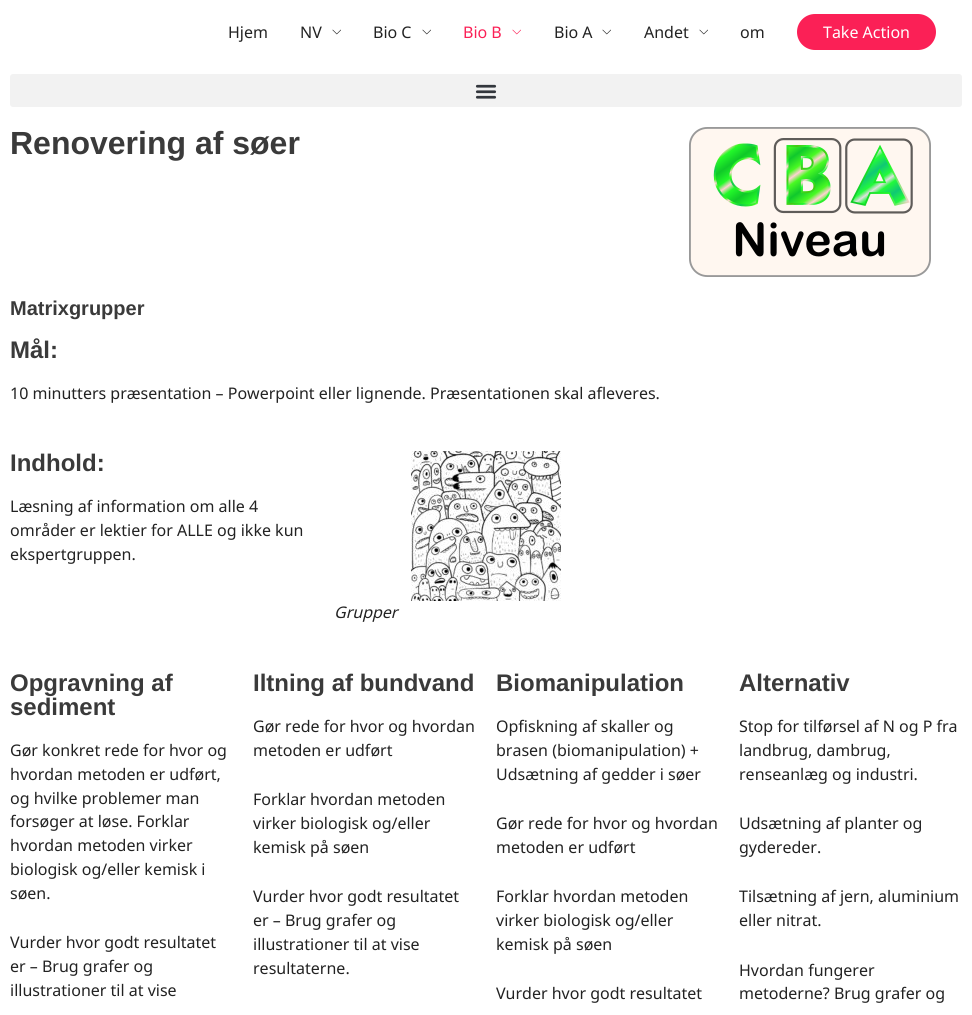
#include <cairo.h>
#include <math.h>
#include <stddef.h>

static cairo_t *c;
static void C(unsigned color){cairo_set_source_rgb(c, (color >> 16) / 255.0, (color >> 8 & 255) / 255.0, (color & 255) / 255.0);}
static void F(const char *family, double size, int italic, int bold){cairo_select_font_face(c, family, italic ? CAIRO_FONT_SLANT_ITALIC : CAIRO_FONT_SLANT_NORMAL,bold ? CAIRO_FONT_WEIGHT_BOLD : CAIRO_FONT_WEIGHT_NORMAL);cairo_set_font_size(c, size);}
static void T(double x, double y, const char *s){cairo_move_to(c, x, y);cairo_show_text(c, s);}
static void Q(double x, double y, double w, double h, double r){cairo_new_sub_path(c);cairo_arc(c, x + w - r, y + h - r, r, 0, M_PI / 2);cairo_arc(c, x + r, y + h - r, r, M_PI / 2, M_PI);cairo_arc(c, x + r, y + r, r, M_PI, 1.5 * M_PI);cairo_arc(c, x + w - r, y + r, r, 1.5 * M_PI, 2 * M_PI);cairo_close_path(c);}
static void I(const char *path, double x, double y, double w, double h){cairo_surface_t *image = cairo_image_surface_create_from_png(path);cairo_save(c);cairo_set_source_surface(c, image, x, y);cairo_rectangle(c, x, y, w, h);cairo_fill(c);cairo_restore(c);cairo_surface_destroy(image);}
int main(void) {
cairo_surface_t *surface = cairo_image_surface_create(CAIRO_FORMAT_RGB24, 972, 1015);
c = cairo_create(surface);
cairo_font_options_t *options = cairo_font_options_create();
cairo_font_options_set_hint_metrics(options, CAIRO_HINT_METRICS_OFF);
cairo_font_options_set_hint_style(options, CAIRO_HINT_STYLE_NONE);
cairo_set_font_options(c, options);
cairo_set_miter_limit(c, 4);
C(0xffffff);
cairo_paint(c);
F("Noto Sans",16,0,0);
C(0x222222);
T(228,38,"Hjem");
T(300,38,"NV");
I("1.png",332,29,9,6);
T(373,38,"Bio C");
I("1.png",422,29,9,6);
C(0xfb2056);
T(463,38,"Bio B");
I("2.png",512,29,9,6);
C(0x222222);
T(554,38,"Bio A");
I("1.png",602,29,9,6);
T(644,38,"Andet");
I("1.png",699,29,9,6);
T(740,38,"om");
C(0xfb2056);
Q(797,14,139,36,18);
cairo_fill(c);
C(0xffffff);
T(823,38,"Take Action");
C(0xf2f2f2);
Q(10,74,952,33,3);
cairo_fill(c);
I("3.png",475,84,22,15);
F("Liberation Sans",32,0,1);
C(0x3a3a3a);
T(10,154,"Renovering af søer");
I("4.png",689,127,242,150);
F("Liberation Sans",20,0,1);
T(10,315,"Matrixgrupper");
F("Liberation Sans",24,0,1);
T(10,358,"Mål:");
F("Noto Sans",16,0,0);
C(0x222222);
T(10,399,"10 minutters præsentation – Powerpoint eller lignende. Præsentationen skal afleveres.");
F("Liberation Sans",24,0,1);
C(0x3a3a3a);
T(10,471,"Indhold:");
F("Noto Sans",16,0,0);
C(0x222222);
T(10,512,"Læsning af information om alle 4");
T(10,536,"områder er lektier for ALLE og ikke kun");
T(10,560,"ekspertgruppen.");
I("5.png",411,451,150,150);
F("Noto Sans",16,1,0);
T(334,618,"Grupper");
F("Liberation Sans",24,0,1);
C(0x3a3a3a);
T(10,691,"Opgravning af");
T(10,715,"sediment");
F("Noto Sans",16,0,0);
C(0x222222);
T(10,756,"Gør konkret rede for hvor og");
T(10,780,"hvordan metoden er udført,");
T(10,804,"og hvilke problemer man");
T(10,827,"forsøger at løse. Forklar");
T(10,851,"hvordan metoden virker");
T(10,875,"biologisk og/eller kemisk i");
T(10,899,"søen.");
T(10,948,"Vurder hvor godt resultatet");
T(10,972,"er – Brug grafer og");
T(10,996,"illustrationer til at vise");
F("Liberation Sans",24,0,1);
C(0x3a3a3a);
T(253,691,"Iltning af bundvand");
F("Noto Sans",16,0,0);
C(0x222222);
T(253,732,"Gør rede for hvor og hvordan");
T(253,756,"metoden er udført");
T(253,805,"Forklar hvordan metoden");
T(253,829,"virker biologisk og/eller");
T(253,853,"kemisk på søen");
T(253,902,"Vurder hvor godt resultatet");
T(253,926,"er – Brug grafer og");
T(253,950,"illustrationer til at vise");
T(253,974,"resultaterne.");
F("Liberation Sans",24,0,1);
C(0x3a3a3a);
T(496,691,"Biomanipulation");
F("Noto Sans",16,0,0);
C(0x222222);
T(496,732,"Opfiskning af skaller og");
T(496,756,"brasen (biomanipulation) +");
T(496,780,"Udsætning af gedder i søer");
T(496,829,"Gør rede for hvor og hvordan");
T(496,853,"metoden er udført");
T(496,902,"Forklar hvordan metoden");
T(496,926,"virker biologisk og/eller");
T(496,950,"kemisk på søen");
T(496,999,"Vurder hvor godt resultatet");
F("Liberation Sans",24,0,1);
C(0x3a3a3a);
T(739,691,"Alternativ");
F("Noto Sans",16,0,0);
C(0x222222);
T(739,732,"Stop for tilførsel af N og P fra");
T(739,756,"landbrug, dambrug,");
T(739,780,"renseanlæg og industri.");
T(739,829,"Udsætning af planter og");
T(739,853,"gydereder.");
T(739,902,"Tilsætning af jern, aluminium");
T(739,926,"eller nitrat.");
T(739,976,"Hvordan fungerer");
T(739,999,"metoderne? Brug grafer og");
cairo_surface_write_to_png(surface, "o.png");
cairo_font_options_destroy(options);
cairo_destroy(c);
cairo_surface_destroy(surface);
return 0;
}
